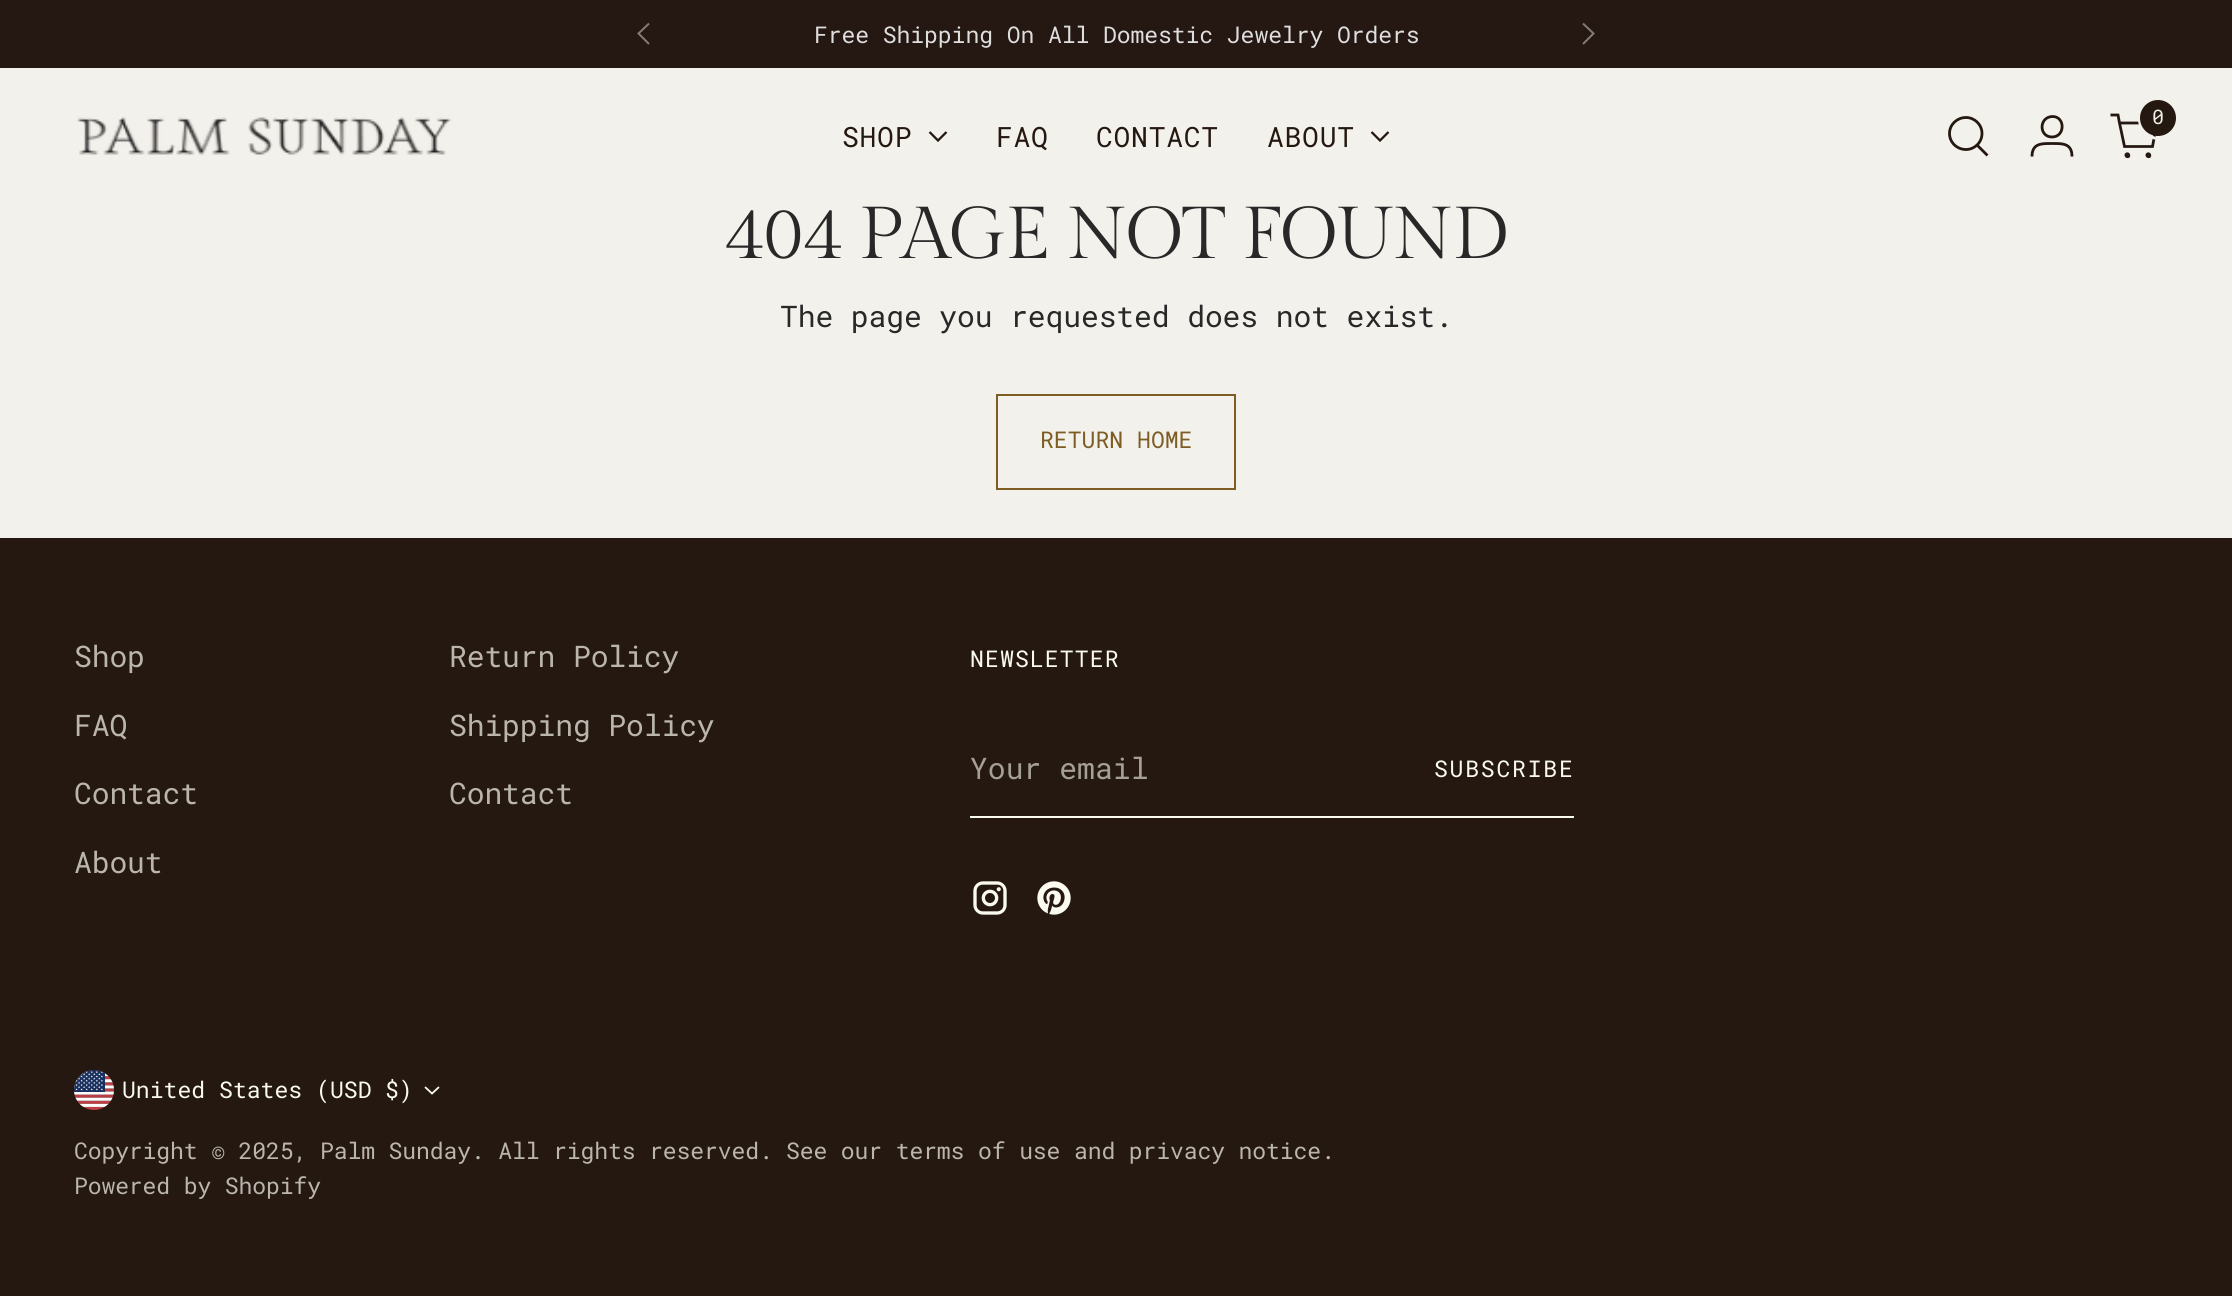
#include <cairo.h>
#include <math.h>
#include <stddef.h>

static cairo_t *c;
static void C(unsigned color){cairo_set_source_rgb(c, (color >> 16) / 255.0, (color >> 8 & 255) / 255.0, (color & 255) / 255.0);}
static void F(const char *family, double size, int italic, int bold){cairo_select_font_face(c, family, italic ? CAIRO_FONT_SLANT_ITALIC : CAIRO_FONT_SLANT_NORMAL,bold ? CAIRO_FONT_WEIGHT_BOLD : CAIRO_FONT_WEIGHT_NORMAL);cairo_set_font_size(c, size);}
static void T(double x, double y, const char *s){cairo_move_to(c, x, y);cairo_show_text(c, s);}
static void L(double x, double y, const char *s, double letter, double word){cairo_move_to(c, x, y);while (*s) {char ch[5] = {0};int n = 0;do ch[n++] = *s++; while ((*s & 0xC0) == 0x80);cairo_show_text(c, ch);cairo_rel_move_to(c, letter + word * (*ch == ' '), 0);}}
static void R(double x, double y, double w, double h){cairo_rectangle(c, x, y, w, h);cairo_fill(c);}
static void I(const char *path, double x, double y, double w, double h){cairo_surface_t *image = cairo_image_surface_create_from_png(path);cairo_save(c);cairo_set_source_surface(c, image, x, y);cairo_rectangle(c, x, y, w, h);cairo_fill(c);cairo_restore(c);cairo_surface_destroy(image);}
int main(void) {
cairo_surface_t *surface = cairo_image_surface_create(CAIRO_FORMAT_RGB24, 2232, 1296);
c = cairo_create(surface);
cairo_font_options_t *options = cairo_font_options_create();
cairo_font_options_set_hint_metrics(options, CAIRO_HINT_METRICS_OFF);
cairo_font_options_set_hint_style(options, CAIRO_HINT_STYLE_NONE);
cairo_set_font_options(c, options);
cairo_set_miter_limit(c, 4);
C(0xf2f1eb);
cairo_paint(c);
C(0x251712);
R(0,0,2232,68);
cairo_new_path(c);
cairo_move_to(c,649,23.5);
cairo_line_to(c,638.5,33.5);
cairo_line_to(c,649,44);
C(0x827b78);
cairo_stroke(c);
cairo_new_path(c);
cairo_move_to(c,1583,44);
cairo_line_to(c,1593.5,33.5);
cairo_line_to(c,1583,23.5);
cairo_stroke(c);
F("Roboto Mono",23.1,0,0);
C(0xdedede);
L(814,43,"Free Shipping On All Domestic Jewelry Orders",-.1,0);
I("1.png",77,117,375,38);
F("Roboto Mono",28,0,0);
C(0x251811);
L(842,147,"SHOP",.75,0);
cairo_new_path(c);
cairo_move_to(c,929.5,132);
cairo_line_to(c,938,140.5);
cairo_line_to(c,946.5,132);
cairo_set_line_width(c,2.3);
cairo_stroke(c);
L(996,147,"FAQ",.75,0);
L(1096,147,"CONTACT",.75,0);
L(1267,147,"ABOUT",.75,0);
cairo_new_path(c);
cairo_move_to(c,1371.5,132);
cairo_line_to(c,1380,140.5);
cairo_line_to(c,1388.5,132);
cairo_stroke(c);
cairo_new_path(c);
cairo_move_to(c,1966,149.5);
cairo_curve_to(c,1974.5,149.5,1982,142.5,1982,133.5);
cairo_curve_to(c,1982,124.5,1974.5,117.5,1966,117.5);
cairo_curve_to(c,1957,117.5,1949.5,124.5,1949.5,133.5);
cairo_curve_to(c,1949.5,142.5,1957,149.5,1966,149.5);
cairo_close_path(c);
cairo_set_line_width(c,2.8);
cairo_set_line_cap(c,CAIRO_LINE_CAP_ROUND);
cairo_stroke(c);
cairo_new_path(c);
cairo_move_to(c,1977.5,145.5);
cairo_line_to(c,1987.5,155.5);
cairo_set_line_cap(c,CAIRO_LINE_CAP_BUTT);
cairo_stroke(c);
cairo_new_path(c);
cairo_move_to(c,2052,137);
cairo_curve_to(c,2065.5,137,2065.5,116,2052,116.5);
cairo_curve_to(c,2038.5,117.5,2039,137,2052,137);
cairo_close_path(c);
cairo_move_to(c,2032,156.5);
cairo_curve_to(c,2032,143,2042,143.5,2052,143.5);
cairo_curve_to(c,2062,143.5,2072,143,2072,156.5);
cairo_stroke(c);
cairo_new_path(c);
cairo_move_to(c,2119.5,123);
cairo_line_to(c,2157,123);
cairo_line_to(c,2152.5,146.5);
cairo_line_to(c,2124.5,146.5);
cairo_close_path(c);
cairo_move_to(c,2119.5,123);
cairo_line_to(c,2118,115);
cairo_line_to(c,2110.5,115);
cairo_stroke(c);
cairo_arc(c,2159,119,19.5,0,2 * M_PI);
C(0xf2f1eb);
cairo_set_line_width(c,3);
cairo_stroke(c);
C(0x251811);
cairo_arc(c,2158,118,18,0,2 * M_PI);
cairo_fill(c);
F("Roboto Mono",20,0,0);
C(0xf2f1eb);
L(2152,124,"0",-.15,0);
cairo_new_path(c);
cairo_move_to(c,2126.5,154);
cairo_curve_to(c,2128,153,2129.5,155,2128.5,156.5);
cairo_curve_to(c,2126.5,157.5,2125,155,2126.5,154);
cairo_close_path(c);
cairo_move_to(c,2147.5,154);
cairo_curve_to(c,2149,153,2150.5,155,2149.5,156.5);
cairo_curve_to(c,2147.5,157.5,2146,155,2147.5,154);
cairo_close_path(c);
C(0x251811);
cairo_set_line_width(c,2.8);
cairo_set_line_cap(c,CAIRO_LINE_CAP_ROUND);
cairo_set_line_join(c,CAIRO_LINE_JOIN_BEVEL);
cairo_stroke(c);
F("Gilda Display",73.25,0,0);
C(0x282828);
L(724,258,"404 PAGE NOT FOUND",-1.1,0);
F("Roboto Mono",29.75,0,0);
L(780,327,"The page you requested does not exist.",-.15,0);
cairo_rectangle(c,997,395,238,94);
C(0x7d5d24);
cairo_set_line_width(c,2);
cairo_set_line_cap(c,CAIRO_LINE_CAP_BUTT);
cairo_set_line_join(c,CAIRO_LINE_JOIN_MITER);
cairo_stroke(c);
F("Roboto Mono",23.1,0,0);
T(1040,448,"RETURN HOME");
C(0x251811);
R(0,538,2232,758);
F("Roboto Mono",29.75,0,0);
C(0xbab6ad);
L(74,667,"Shop",-.15,0);
L(74,736,"FAQ",-.15,0);
L(74,804,"Contact",-.15,0);
L(74,873,"About",-.15,0);
L(449,667,"Return Policy",-.15,0);
L(449,736,"Shipping Policy",-.15,0);
L(449,804,"Contact",-.15,0);
F("Roboto Mono",23.1,0,0);
C(0xfafaf0);
L(970,667,"NEWSLETTER",1.1,0);
R(970,816,604,2);
F("Roboto Mono",29.75,0,0);
C(0xa5a097);
T(970,779,"Your email");
F("Roboto Mono",23.1,0,0);
C(0xfafaf0);
L(1434,777,"SUBSCRIBE",1.75,0);
I("2.png",973,881,34,34);
I("3.png",1037,881,34,34);
I("4.png",74,1070,40,40);
T(122,1098,"United States (USD");
T(385,1098,"$)");
cairo_new_path(c);
cairo_move_to(c,425,1087);
cairo_line_to(c,432,1093.5);
cairo_line_to(c,439,1087);
cairo_set_line_width(c,1.8);
cairo_stroke(c);
C(0xbab6ad);
L(74,1159,"Copyright © 2025,",-.15,0);
L(320,1159,"Palm Sunday. All rights reserved.",-.15,0);
L(786,1159,"See our terms of use and privacy notice.",-.15,0);
L(74,1194,"Powered by Shopify",-.15,0);
cairo_surface_write_to_png(surface, "o.png");
cairo_font_options_destroy(options);
cairo_destroy(c);
cairo_surface_destroy(surface);
return 0;
}
